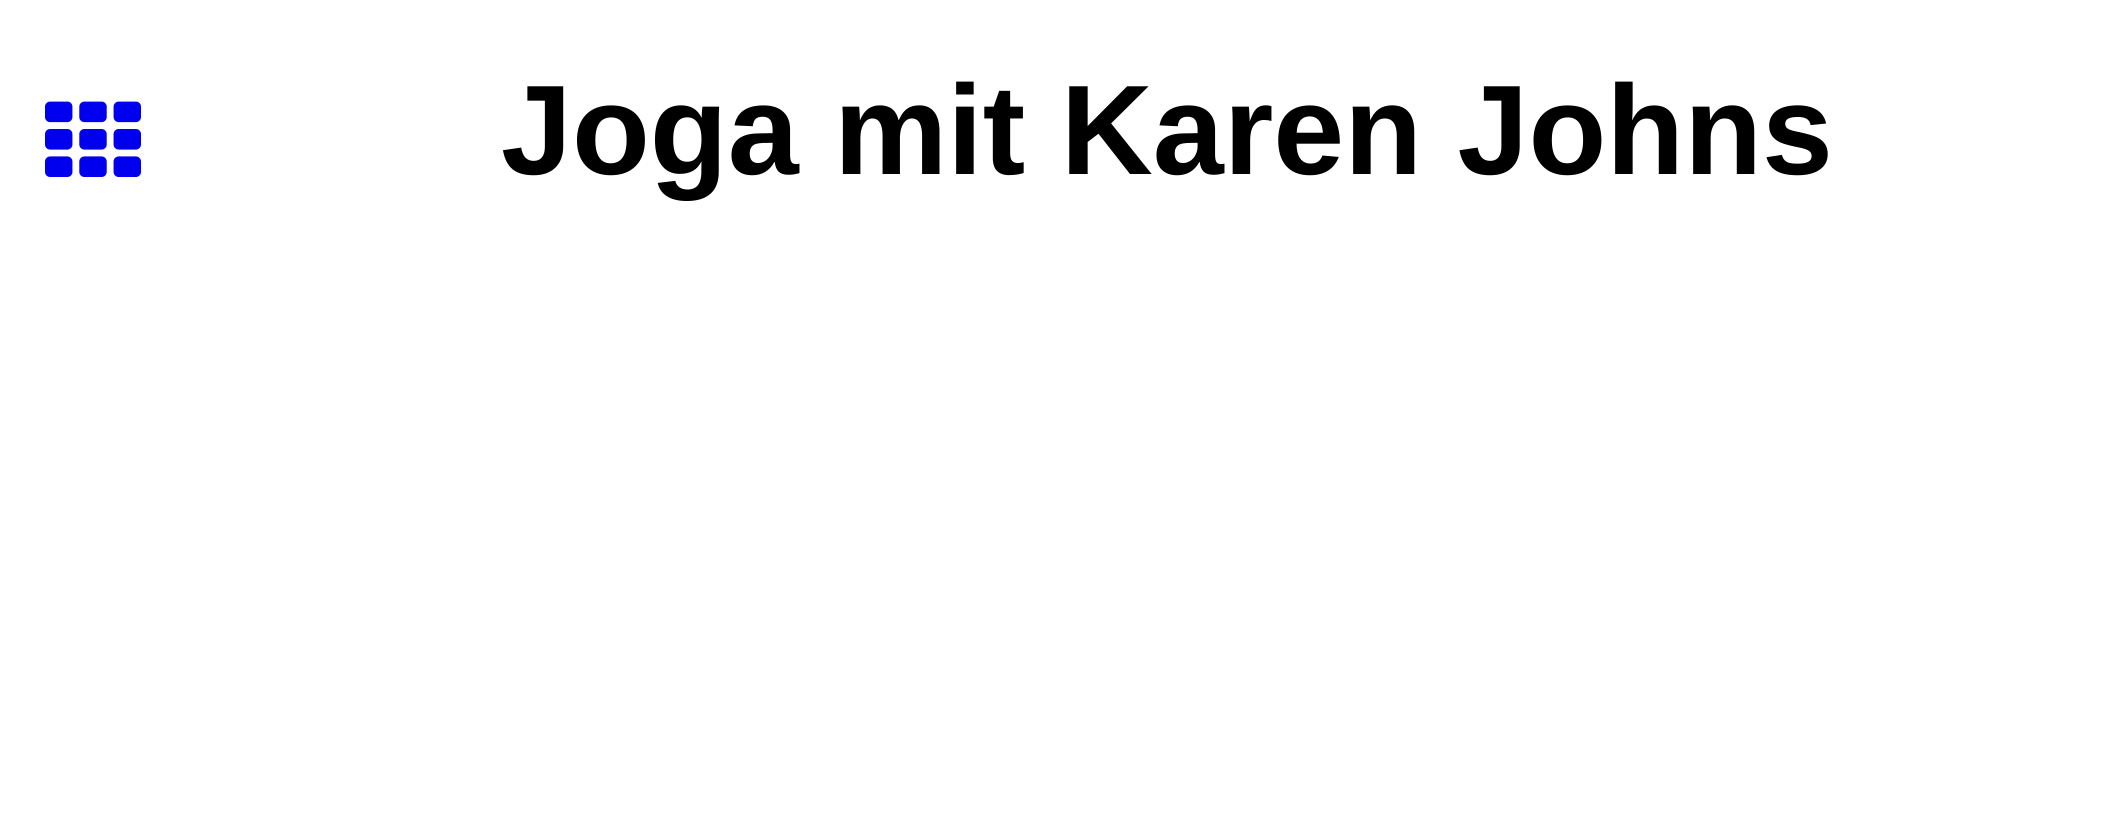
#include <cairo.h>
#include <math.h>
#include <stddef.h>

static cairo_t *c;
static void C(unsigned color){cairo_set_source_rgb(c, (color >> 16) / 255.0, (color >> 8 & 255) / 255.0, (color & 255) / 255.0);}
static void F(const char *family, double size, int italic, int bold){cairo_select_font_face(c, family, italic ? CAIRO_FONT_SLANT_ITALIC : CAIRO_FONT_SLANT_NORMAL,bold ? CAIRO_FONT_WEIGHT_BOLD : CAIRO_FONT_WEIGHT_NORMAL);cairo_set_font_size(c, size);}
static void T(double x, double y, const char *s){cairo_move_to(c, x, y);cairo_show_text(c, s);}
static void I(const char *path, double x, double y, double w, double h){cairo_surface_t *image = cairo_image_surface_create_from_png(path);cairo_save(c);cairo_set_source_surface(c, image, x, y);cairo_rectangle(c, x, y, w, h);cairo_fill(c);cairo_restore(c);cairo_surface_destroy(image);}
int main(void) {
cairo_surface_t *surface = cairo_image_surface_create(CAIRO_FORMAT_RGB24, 2124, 819);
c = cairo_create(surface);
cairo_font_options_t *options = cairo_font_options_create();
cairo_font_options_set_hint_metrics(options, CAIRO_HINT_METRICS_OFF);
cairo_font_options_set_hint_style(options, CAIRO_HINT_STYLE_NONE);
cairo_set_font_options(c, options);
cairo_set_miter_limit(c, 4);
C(0xffffff);
cairo_paint(c);
I("1.png",45,101,96,76);
F("Liberation Sans",127.5,0,1);
C(0x000000);
T(501,174,"Joga mit Karen Johns");
cairo_surface_write_to_png(surface, "o.png");
cairo_font_options_destroy(options);
cairo_destroy(c);
cairo_surface_destroy(surface);
return 0;
}
